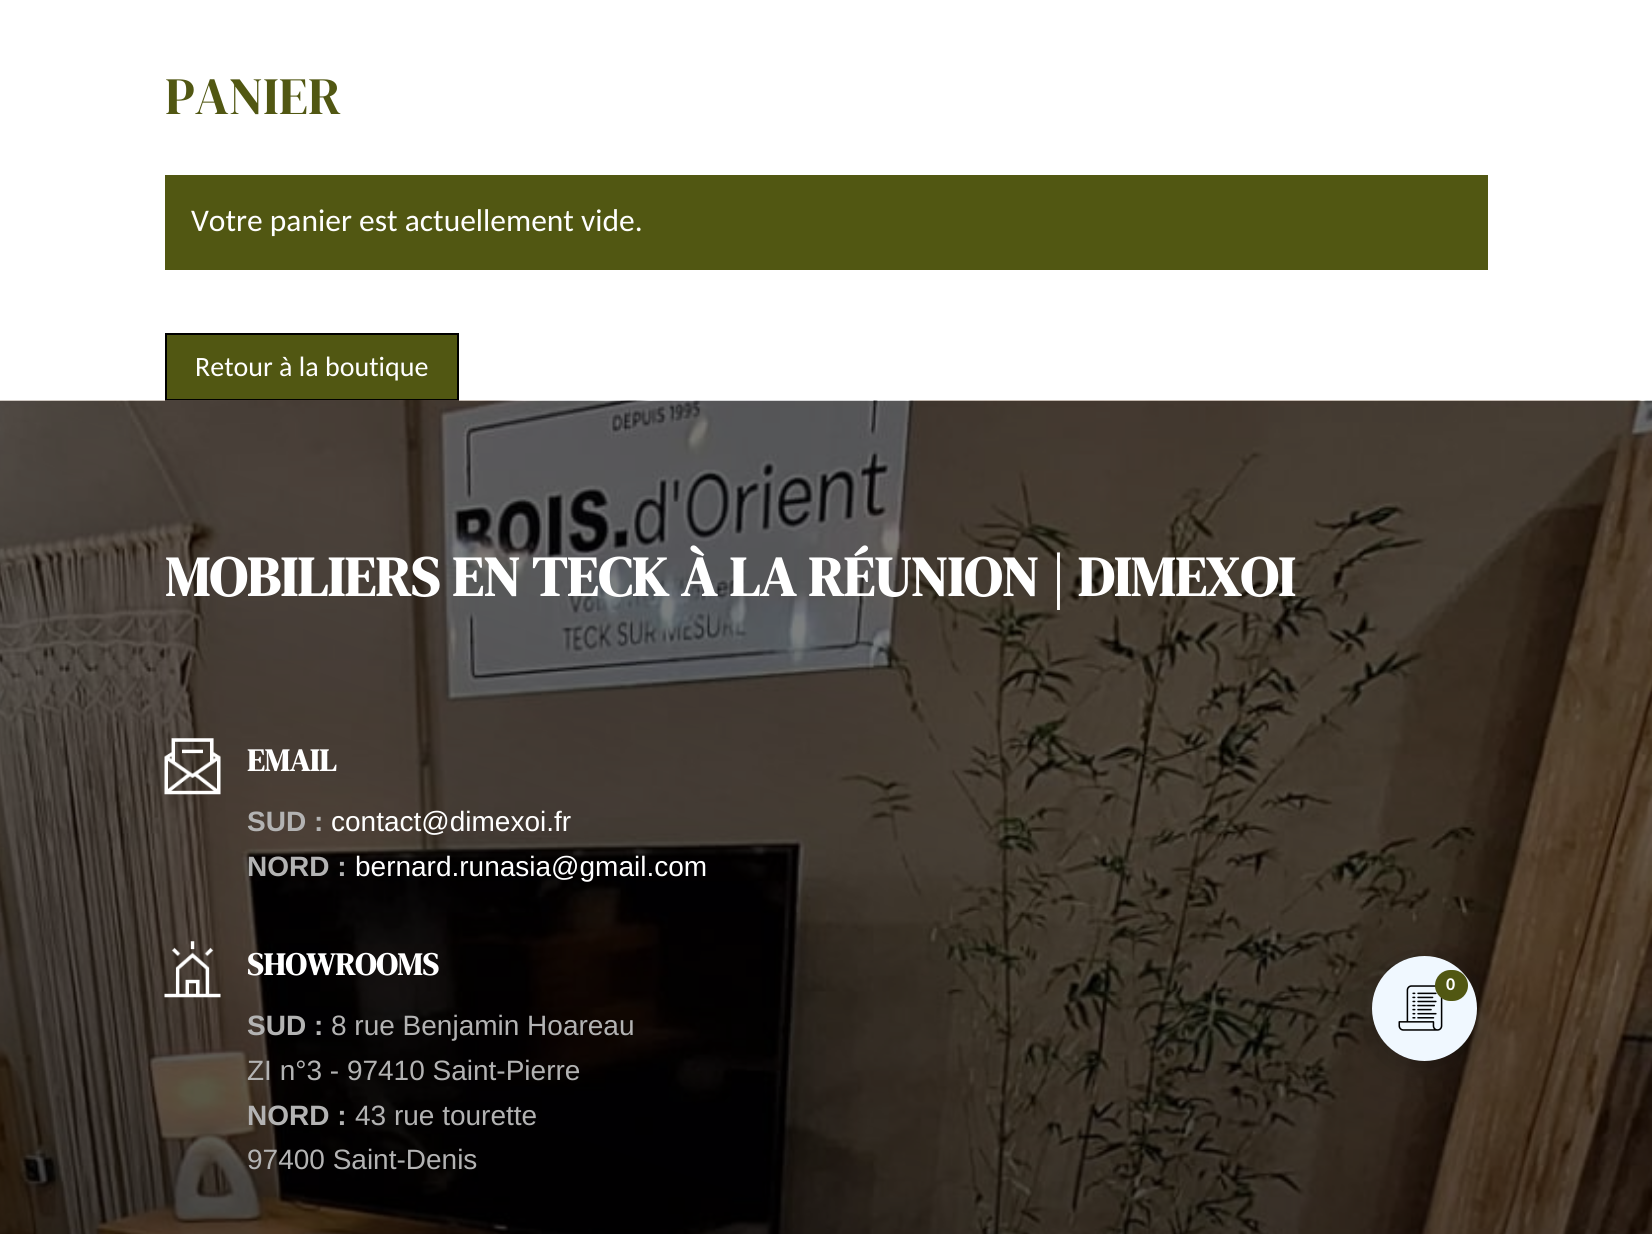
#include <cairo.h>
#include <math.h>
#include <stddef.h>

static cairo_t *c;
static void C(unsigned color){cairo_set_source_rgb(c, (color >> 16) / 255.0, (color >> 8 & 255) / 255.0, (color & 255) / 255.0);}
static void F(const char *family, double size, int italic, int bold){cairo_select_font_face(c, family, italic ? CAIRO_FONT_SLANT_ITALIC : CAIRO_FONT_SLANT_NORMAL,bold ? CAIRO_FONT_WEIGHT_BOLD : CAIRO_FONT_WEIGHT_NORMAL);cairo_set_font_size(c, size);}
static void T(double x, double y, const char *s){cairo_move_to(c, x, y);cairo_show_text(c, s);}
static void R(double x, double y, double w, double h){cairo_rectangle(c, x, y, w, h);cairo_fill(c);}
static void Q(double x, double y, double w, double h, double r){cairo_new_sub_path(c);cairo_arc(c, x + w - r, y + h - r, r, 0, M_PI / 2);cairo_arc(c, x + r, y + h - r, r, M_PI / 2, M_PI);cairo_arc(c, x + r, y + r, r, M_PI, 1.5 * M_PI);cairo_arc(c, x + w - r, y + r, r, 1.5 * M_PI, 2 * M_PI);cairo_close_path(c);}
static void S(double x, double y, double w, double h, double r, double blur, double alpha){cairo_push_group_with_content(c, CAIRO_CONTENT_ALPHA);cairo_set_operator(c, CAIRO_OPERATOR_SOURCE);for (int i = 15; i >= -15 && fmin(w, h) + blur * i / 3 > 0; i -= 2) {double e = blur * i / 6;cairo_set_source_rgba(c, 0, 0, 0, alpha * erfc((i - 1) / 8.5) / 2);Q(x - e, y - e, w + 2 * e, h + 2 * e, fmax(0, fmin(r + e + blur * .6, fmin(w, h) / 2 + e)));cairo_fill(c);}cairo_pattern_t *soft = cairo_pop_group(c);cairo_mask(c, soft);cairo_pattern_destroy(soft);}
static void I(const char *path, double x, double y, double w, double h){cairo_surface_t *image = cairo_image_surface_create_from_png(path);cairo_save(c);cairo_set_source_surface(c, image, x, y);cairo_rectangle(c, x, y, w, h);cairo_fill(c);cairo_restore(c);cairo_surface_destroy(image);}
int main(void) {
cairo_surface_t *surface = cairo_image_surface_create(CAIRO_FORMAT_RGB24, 1652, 1234);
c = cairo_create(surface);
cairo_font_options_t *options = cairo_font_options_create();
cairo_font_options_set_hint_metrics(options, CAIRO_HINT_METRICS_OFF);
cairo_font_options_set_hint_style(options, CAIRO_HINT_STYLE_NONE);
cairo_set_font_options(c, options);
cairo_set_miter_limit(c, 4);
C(0xffffff);
cairo_paint(c);
F("DM Serif Display",52.5,0,0);
C(0x515712);
T(165,114,"PANIER");
R(165,175,1323,95);
F("Carlito",31.5,0,0);
C(0xffffff);
T(191,231,"Votre panier est actuellement vide.");
C(0x515712);
cairo_rectangle(c,166,334,292,66);
cairo_fill_preserve(c);
C(0x000000);
cairo_stroke(c);
F("Carlito",28,0,0);
C(0xffffff);
T(195,376,"Retour à la boutique");
I("1.png",0,400,1652,834);
F("DM Serif Display",56,0,1);
T(165,596,"MOBILIERS EN TECK À LA RÉUNION | DIMEXOI");
I("2.png",164,738,57,57);
F("DM Serif Display",31.5,0,1);
T(247,771,"EMAIL");
F("Liberation Sans",28,0,1);
C(0xb3b3b3);
T(247,831,"SUD :");
F("Liberation Sans",28,0,0);
C(0xffffff);
T(331,831,"contact@dimexoi.fr");
F("Liberation Sans",28,0,1);
C(0xb3b3b3);
T(247,876,"NORD :");
F("Liberation Sans",28,0,0);
C(0xffffff);
T(355,876,"bernard.runasia@gmail.com");
I("3.png",164,941,57,57);
F("DM Serif Display",31.5,0,1);
T(247,975,"SHOWROOMS");
F("Liberation Sans",28,0,1);
C(0xb3b3b3);
T(247,1035,"SUD :");
F("Liberation Sans",28,0,0);
T(331,1035,"8 rue Benjamin Hoareau");
T(247,1080,"ZI n°3 - 97410 Saint-Pierre");
F("Liberation Sans",28,0,1);
T(247,1125,"NORD :");
F("Liberation Sans",28,0,0);
T(355,1125,"43 rue tourette");
T(247,1169,"97400 Saint-Denis");
C(0x101010);
S(1372,961,105,105,52.5,15,.31);
C(0xf0f8ff);
cairo_arc(c,1424.5,1008.5,52.5,0,2 * M_PI);
cairo_fill(c);
I("4.png",1398,985,45,46);
C(0x515712);
Q(1435,970,33,31,15.5);
cairo_fill(c);
F("Carlito",18,0,1);
C(0xffffff);
T(1446,990,"0");
cairo_surface_write_to_png(surface, "o.png");
cairo_font_options_destroy(options);
cairo_destroy(c);
cairo_surface_destroy(surface);
return 0;
}
